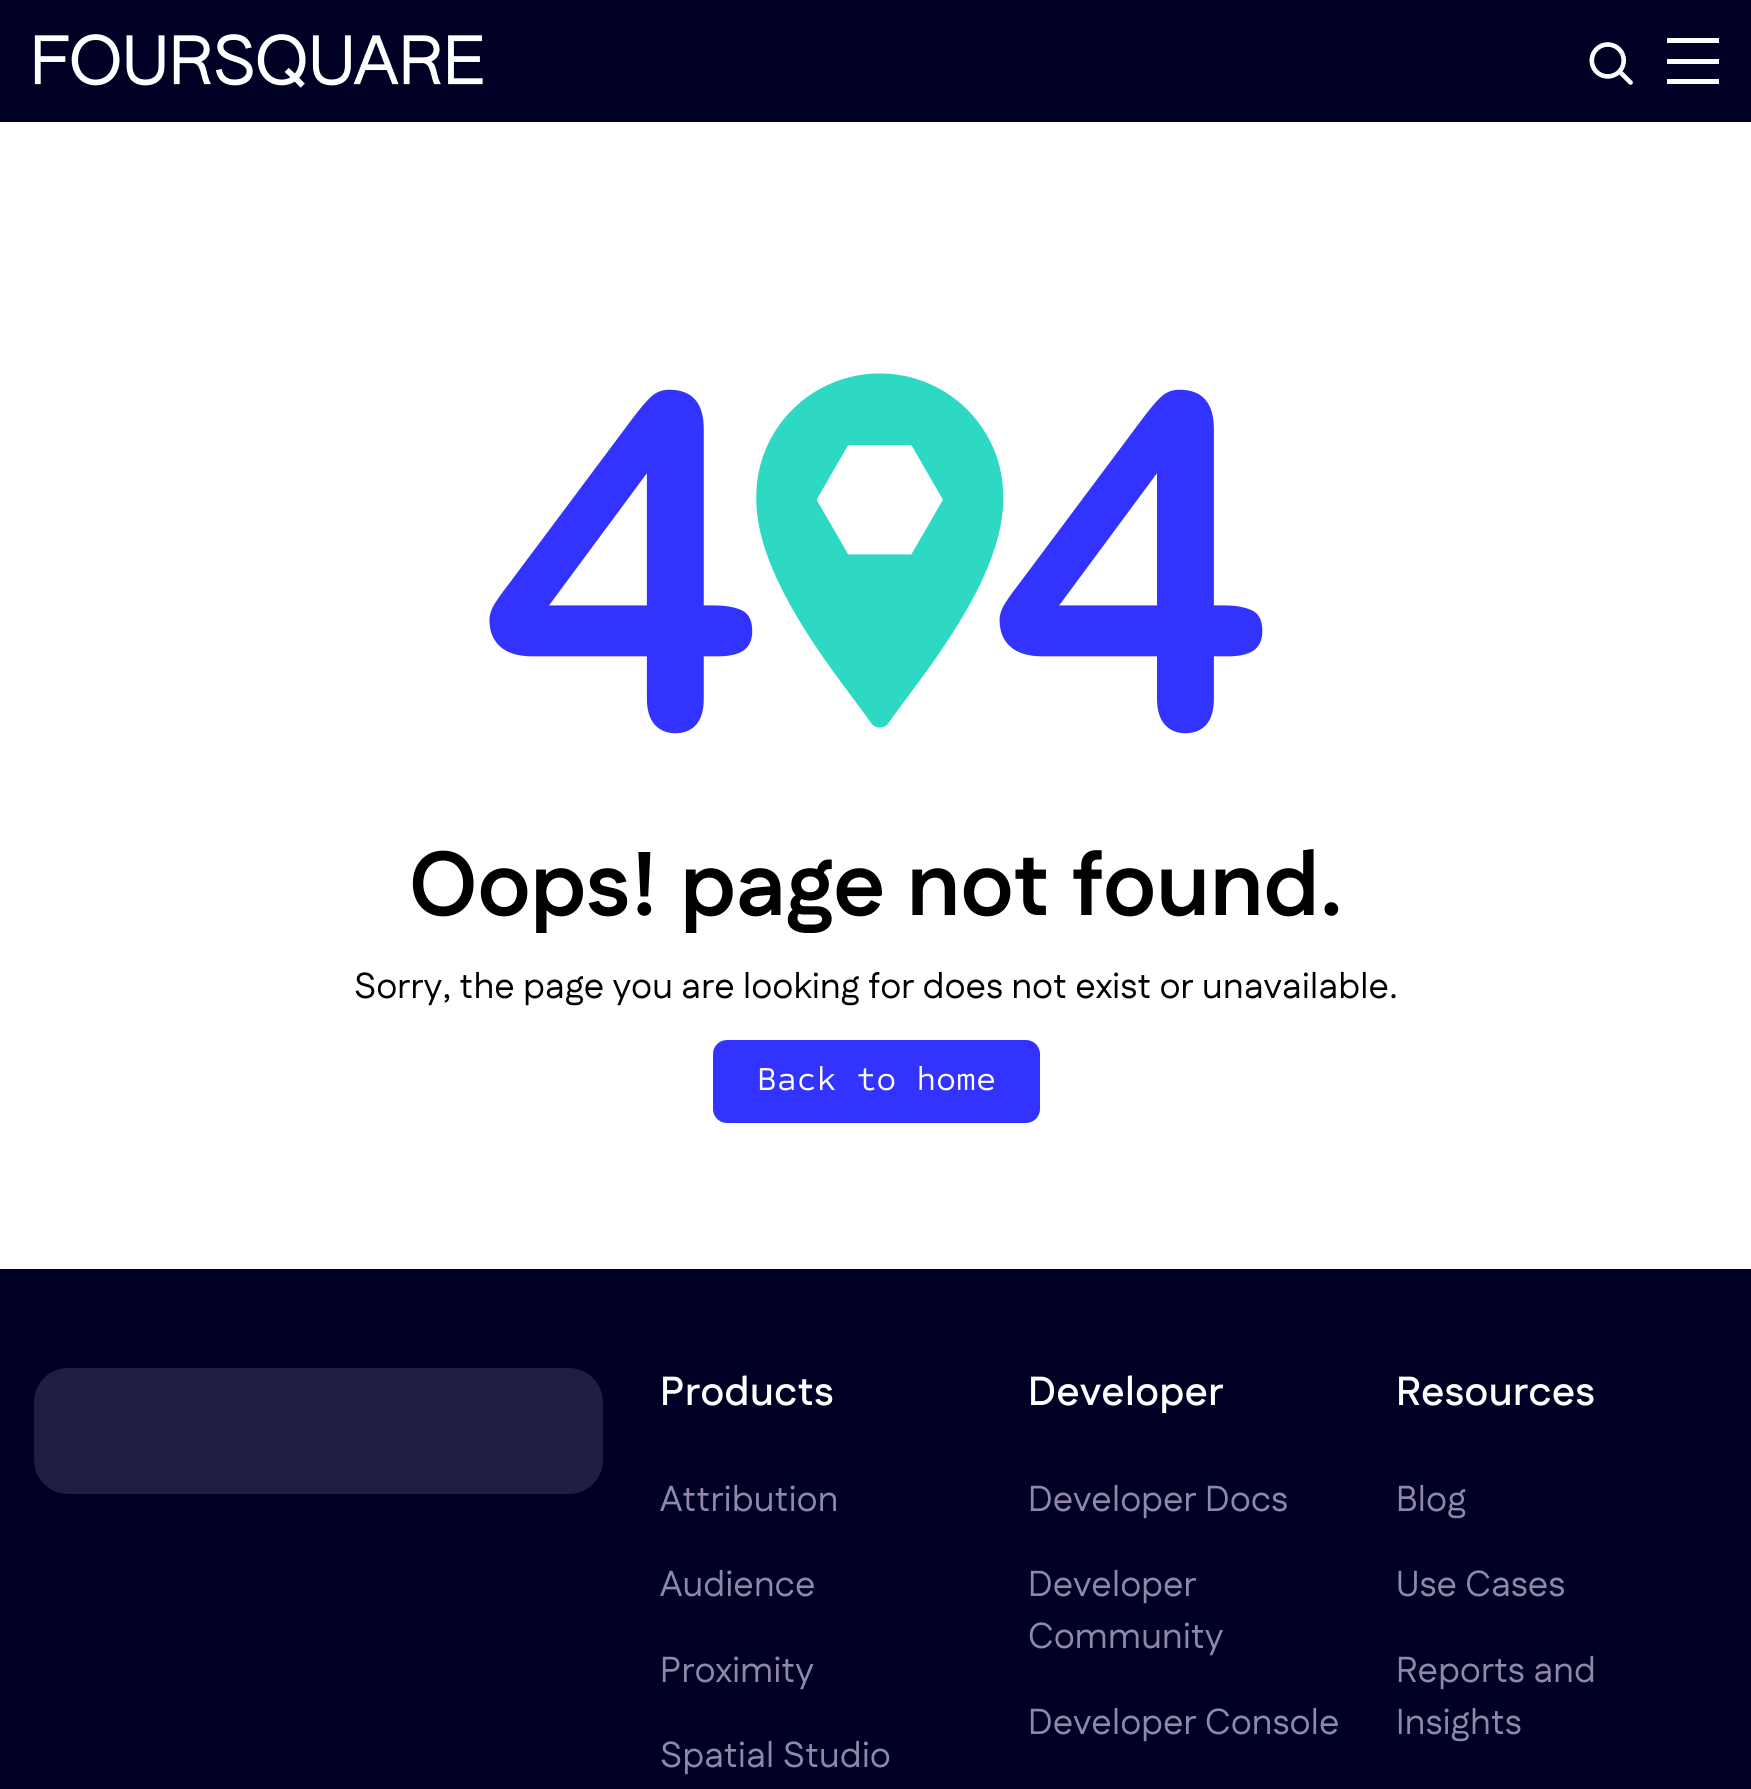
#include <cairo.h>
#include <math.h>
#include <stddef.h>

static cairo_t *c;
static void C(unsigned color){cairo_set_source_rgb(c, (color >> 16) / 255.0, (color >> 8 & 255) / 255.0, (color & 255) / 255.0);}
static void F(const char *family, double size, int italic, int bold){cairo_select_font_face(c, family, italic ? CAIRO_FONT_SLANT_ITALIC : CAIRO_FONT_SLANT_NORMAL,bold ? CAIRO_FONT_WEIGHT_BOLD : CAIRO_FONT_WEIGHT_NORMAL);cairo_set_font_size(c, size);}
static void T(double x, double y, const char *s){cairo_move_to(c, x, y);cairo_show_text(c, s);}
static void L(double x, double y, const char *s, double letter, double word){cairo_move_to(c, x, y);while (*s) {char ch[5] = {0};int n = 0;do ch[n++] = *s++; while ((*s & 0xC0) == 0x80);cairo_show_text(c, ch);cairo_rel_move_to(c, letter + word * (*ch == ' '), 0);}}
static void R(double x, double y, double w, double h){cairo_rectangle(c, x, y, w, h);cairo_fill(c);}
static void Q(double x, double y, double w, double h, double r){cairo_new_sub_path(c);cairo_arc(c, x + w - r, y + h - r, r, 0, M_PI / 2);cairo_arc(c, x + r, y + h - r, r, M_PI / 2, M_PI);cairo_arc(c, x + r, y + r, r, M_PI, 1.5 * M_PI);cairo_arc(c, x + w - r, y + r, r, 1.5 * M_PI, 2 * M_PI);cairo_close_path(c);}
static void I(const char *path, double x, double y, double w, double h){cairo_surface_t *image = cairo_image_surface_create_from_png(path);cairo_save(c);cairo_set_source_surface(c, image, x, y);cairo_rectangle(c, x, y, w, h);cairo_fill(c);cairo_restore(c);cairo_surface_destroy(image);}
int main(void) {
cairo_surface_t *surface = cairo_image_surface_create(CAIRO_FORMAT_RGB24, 1751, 1789);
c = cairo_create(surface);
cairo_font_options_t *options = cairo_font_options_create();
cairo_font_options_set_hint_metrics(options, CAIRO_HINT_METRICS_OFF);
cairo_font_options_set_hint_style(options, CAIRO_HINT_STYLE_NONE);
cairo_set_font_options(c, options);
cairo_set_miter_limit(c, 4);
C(0xffffff);
cairo_paint(c);
C(0x000025);
R(0,0,1751,122);
I("1.png",34,34,449,54);
I("2.png",1589,42,44,43);
C(0xffffff);
R(1667,38,52,5);
R(1667,59,52,5);
R(1667,79,52,5);
I("3.png",489,373,774,361);
F("Fustat",90,0,1);
C(0x000000);
T(409,915,"Oops! page not found.");
F("Fustat",36,0,0);
L(354,998,"Sorry, the page you are looking for does not exist or unavailable.",.35,0);
C(0x3333ff);
Q(714,1041,325,81,13);
cairo_fill_preserve(c);
cairo_stroke(c);
F("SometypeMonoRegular",33.75,0,0);
C(0xffffff);
L(757,1090,"Back to home",.35,0);
C(0x000025);
R(0,1269,1751,520);
C(0x1f1d41);
Q(34,1368,569,126,34);
cairo_fill(c);
F("Fustat SemiBold",40.5,0,0);
C(0xffffff);
L(660,1405,"Products",.5,0);
F("Fustat",36,0,0);
C(0x9188a7);
L(660,1511,"Attribution",.35,0);
L(660,1596,"Audience",.35,0);
L(660,1682,"Proximity",.35,0);
L(660,1767,"Spatial Studio",.35,0);
F("Fustat SemiBold",40.5,0,0);
C(0xffffff);
L(1028,1405,"Developer",.5,0);
F("Fustat",36,0,0);
C(0x9188a7);
L(1028,1511,"Developer Docs",.35,0);
L(1028,1596,"Developer",.35,0);
L(1028,1648,"Community",.35,0);
L(1028,1734,"Developer Console",.35,0);
F("Fustat SemiBold",40.5,0,0);
C(0xffffff);
L(1396,1405,"Resources",.5,0);
F("Fustat",36,0,0);
C(0x9188a7);
L(1396,1511,"Blog",.35,0);
L(1396,1596,"Use Cases",.35,0);
L(1396,1682,"Reports and",.35,0);
L(1396,1734,"Insights",.35,0);
cairo_surface_write_to_png(surface, "o.png");
cairo_font_options_destroy(options);
cairo_destroy(c);
cairo_surface_destroy(surface);
return 0;
}
